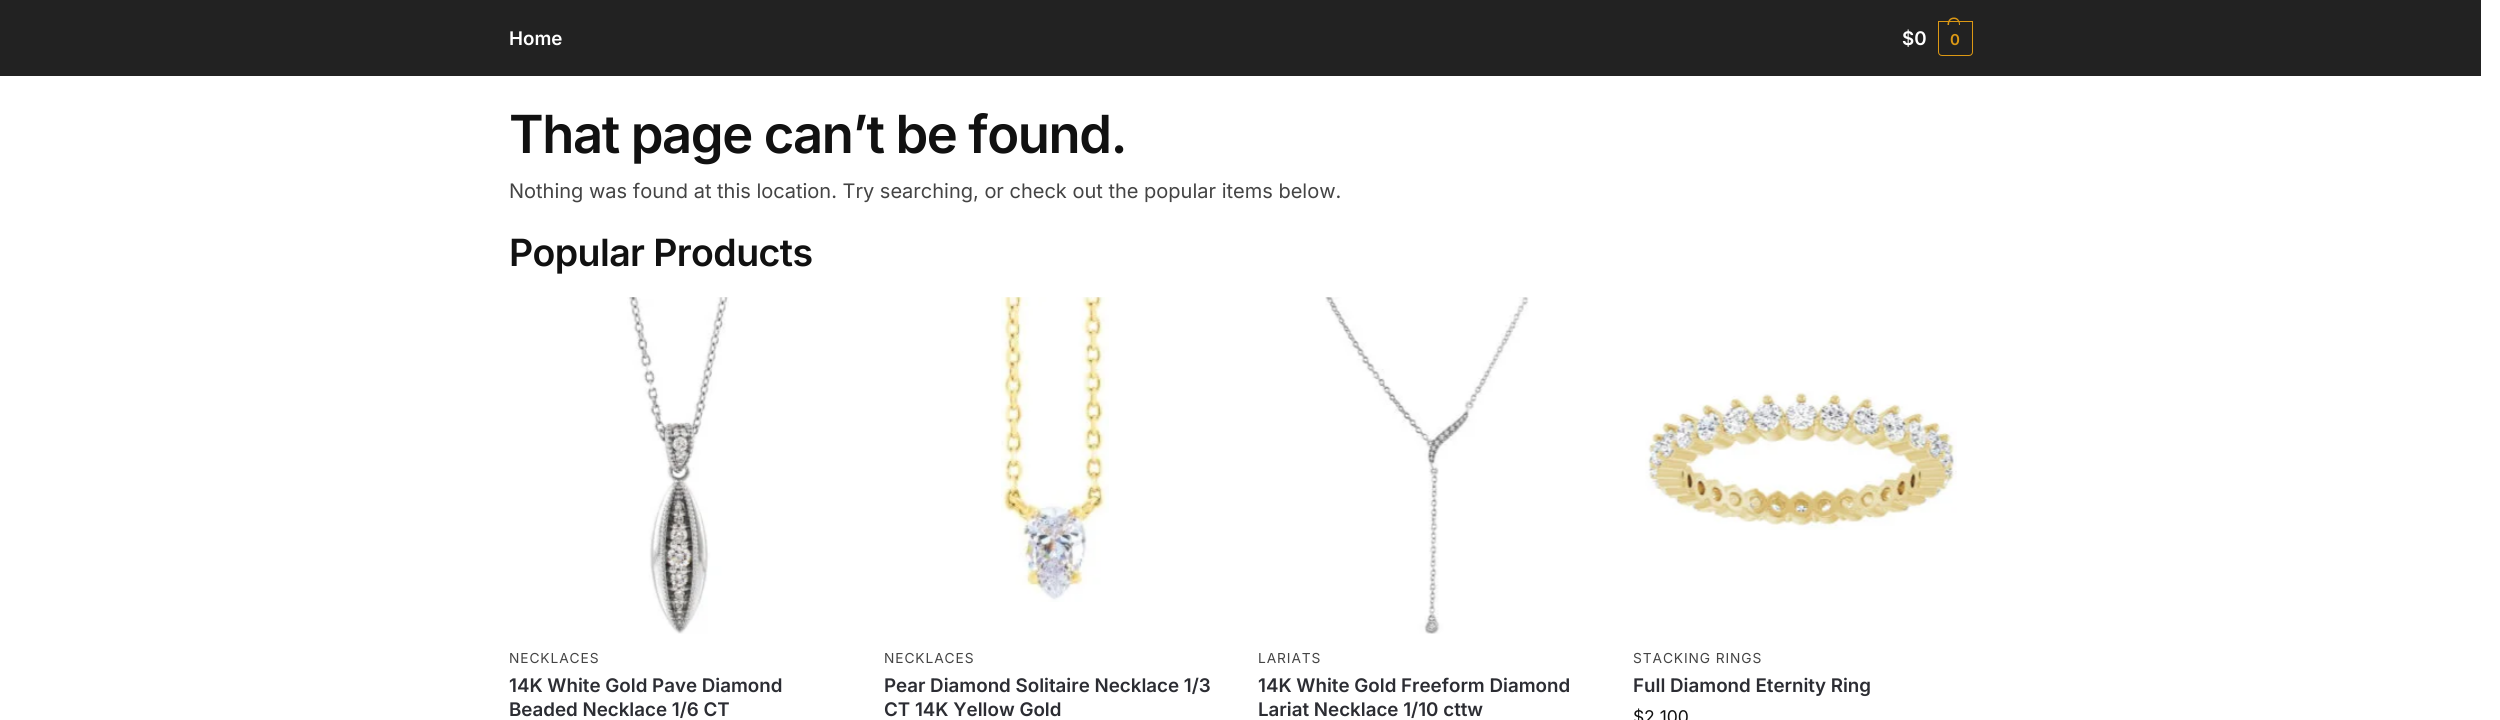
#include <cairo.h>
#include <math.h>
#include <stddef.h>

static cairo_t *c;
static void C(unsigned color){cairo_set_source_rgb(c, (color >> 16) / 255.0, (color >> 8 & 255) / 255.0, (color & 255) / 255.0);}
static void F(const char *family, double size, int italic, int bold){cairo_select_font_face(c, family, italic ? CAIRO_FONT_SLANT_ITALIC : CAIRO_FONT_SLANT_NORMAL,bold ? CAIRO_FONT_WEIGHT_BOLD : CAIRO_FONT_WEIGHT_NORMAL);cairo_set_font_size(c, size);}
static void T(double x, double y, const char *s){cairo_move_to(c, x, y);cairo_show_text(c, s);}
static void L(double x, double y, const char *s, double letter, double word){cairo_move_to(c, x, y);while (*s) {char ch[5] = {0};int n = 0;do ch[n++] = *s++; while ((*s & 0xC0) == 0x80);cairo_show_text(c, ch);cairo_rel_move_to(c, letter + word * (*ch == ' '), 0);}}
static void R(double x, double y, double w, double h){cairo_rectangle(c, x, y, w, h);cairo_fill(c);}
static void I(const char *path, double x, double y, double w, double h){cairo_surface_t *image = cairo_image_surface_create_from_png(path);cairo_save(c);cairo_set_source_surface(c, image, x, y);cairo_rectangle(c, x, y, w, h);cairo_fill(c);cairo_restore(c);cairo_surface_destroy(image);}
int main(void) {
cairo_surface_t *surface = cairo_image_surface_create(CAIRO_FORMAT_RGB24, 2500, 720);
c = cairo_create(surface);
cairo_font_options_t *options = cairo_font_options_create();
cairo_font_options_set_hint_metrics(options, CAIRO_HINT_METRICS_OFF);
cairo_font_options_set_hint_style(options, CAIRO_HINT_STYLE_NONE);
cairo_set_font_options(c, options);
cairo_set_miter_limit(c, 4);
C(0xffffff);
cairo_paint(c);
C(0x222222);
R(0,0,2481,76);
F("Inter SemiBold",18.75,0,0);
C(0xffffff);
T(509,45,"Home");
T(1902,45,"$0");
cairo_new_path(c);
cairo_move_to(c,1938.5,21.5);
cairo_line_to(c,1972.5,21.5);
cairo_line_to(c,1972.5,52);
cairo_curve_to(c,1972.5,54,1971,55.5,1969,55.5);
cairo_line_to(c,1942,55.5);
cairo_curve_to(c,1940,55.5,1938.5,54,1938.5,52);
cairo_close_path(c);
C(0xdc9814);
cairo_set_line_width(c,1);
cairo_stroke(c);
cairo_set_fill_rule(c,CAIRO_FILL_RULE_EVEN_ODD);
cairo_new_path(c);
cairo_move_to(c,1954,17.5);
cairo_curve_to(c,1958,17.5,1960,21,1960,25);
cairo_line_to(c,1947.5,25);
cairo_curve_to(c,1947.5,21,1949.5,17.5,1954,17.5);
cairo_close_path(c);
cairo_move_to(c,1954,19);
cairo_curve_to(c,1957.5,19,1959,22,1959,25);
cairo_line_to(c,1949,25);
cairo_curve_to(c,1949,22,1950,19,1954,19);
cairo_close_path(c);
cairo_fill(c);
F("Inter SemiBold",15,0,0);
L(1950,45,"0",-1,0);
F("Inter SemiBold",52.5,0,0);
C(0x111111);
L(509,153,"That page can’t be found.",-1.4,0);
F("Inter",20,0,0);
C(0x444444);
T(509,198,"Nothing was found at this location. Try searching, or check out the popular items below.");
F("Inter SemiBold",37.5,0,0);
C(0x111111);
L(509,266,"Popular Products",-.6,0);
I("1.png",627,297,102,337);
F("Inter",13.75,0,0);
C(0x444444);
L(509,663,"NECKLACES",.9,0);
F("Inter SemiBold",18.75,0,0);
C(0x2c2d33);
T(509,692,"14K White Gold Pave Diamond");
T(509,716,"Beaded Necklace 1/6 CT");
I("2.png",1001,297,108,305);
F("Inter",13.75,0,0);
C(0x444444);
L(884,663,"NECKLACES",.9,0);
F("Inter SemiBold",18.75,0,0);
C(0x2c2d33);
T(884,692,"Pear Diamond Solitaire Necklace 1/3");
T(884,716,"CT 14K Yellow Gold");
I("3.png",1325,297,204,337);
F("Inter",13.75,0,0);
C(0x444444);
L(1258,663,"LARIATS",.9,0);
F("Inter SemiBold",18.75,0,0);
C(0x2c2d33);
T(1258,692,"14K White Gold Freeform Diamond");
T(1258,716,"Lariat Necklace 1/10 cttw");
I("4.png",1645,390,312,140);
F("Inter",13.75,0,0);
C(0x444444);
L(1633,663,"STACKING RINGS",.9,0);
F("Inter SemiBold",18.75,0,0);
C(0x2c2d33);
T(1633,692,"Full Diamond Eternity Ring");
F("Inter",17.5,0,0);
C(0x111111);
T(1633,723,"$");
T(1644,723,"2,100");
cairo_surface_write_to_png(surface, "o.png");
cairo_font_options_destroy(options);
cairo_destroy(c);
cairo_surface_destroy(surface);
return 0;
}
